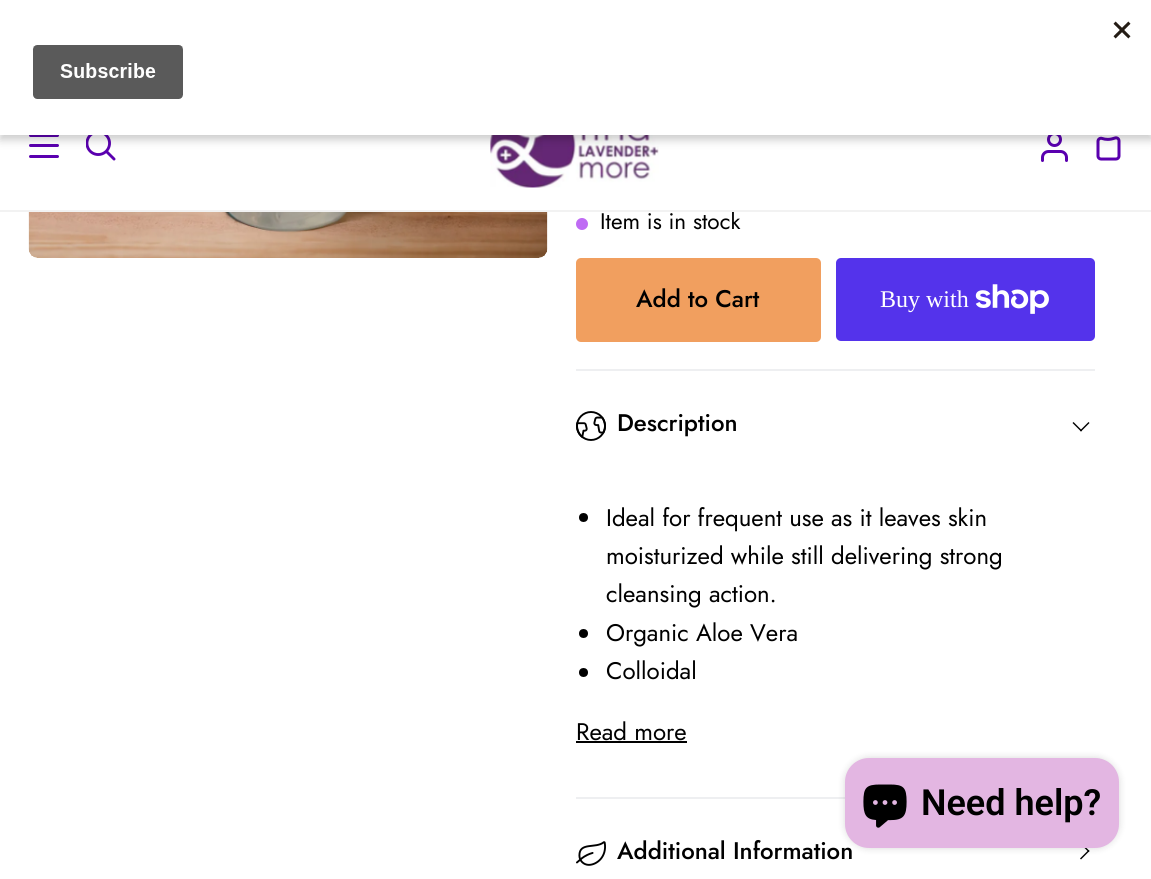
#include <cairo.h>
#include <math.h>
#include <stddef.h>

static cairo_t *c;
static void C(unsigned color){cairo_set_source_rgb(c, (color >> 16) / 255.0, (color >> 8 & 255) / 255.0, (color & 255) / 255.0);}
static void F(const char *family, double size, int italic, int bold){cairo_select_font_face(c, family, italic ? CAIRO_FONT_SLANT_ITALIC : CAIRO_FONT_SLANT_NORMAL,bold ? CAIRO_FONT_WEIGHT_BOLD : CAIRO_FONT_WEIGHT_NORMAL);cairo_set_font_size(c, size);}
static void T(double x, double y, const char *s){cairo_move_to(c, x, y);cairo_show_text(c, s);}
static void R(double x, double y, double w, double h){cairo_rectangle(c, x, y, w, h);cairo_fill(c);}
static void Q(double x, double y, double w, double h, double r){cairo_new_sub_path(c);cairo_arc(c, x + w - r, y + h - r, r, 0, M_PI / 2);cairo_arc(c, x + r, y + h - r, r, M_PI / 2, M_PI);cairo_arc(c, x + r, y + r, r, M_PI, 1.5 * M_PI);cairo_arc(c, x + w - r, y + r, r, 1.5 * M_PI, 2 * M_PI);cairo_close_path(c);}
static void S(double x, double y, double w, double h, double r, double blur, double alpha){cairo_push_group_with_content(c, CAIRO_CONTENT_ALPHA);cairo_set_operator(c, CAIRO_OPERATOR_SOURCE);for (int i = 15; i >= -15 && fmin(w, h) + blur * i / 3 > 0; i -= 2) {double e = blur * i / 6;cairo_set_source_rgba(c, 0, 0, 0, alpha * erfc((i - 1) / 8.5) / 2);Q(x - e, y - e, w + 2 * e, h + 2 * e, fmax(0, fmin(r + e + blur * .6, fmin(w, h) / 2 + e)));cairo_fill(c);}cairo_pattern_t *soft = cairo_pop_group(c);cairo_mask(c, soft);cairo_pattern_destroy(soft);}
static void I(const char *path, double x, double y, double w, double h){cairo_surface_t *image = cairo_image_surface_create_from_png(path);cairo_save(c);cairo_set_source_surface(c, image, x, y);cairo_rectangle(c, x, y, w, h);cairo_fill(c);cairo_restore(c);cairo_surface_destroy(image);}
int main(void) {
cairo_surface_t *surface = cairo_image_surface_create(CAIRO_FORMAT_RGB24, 1151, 879);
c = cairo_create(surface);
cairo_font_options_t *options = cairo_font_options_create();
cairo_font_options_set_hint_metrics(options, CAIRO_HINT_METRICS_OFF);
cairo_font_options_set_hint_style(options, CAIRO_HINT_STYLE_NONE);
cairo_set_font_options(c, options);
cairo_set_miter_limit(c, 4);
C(0xffffff);
cairo_paint(c);
C(0x5a00af);
Q(29,134,30,3,1.5);
cairo_fill(c);
Q(29,144,30,3,1.5);
cairo_fill(c);
I("2.png",86,135,30,26);
I("3.png",490,135,169,53);
I("4.png",1041,135,27,27);
I("5.png",1096,136,25,25);
C(0x000000);
S(0,5,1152,135,0,4.5,.2);
C(0xffffff);
R(0,0,1151,135);
I("1.png",32,21,1099,78);
F("Jost",22.5,0,0);
C(0x000000);
T(600,229,"Item is in stock");
C(0xf2f2f2);
R(0,210,1151,2);
C(0x5a00af);
Q(29,155,30,3,1.5);
cairo_fill(c);
I("6.png",28,212,520,46);
C(0xbf6bf4);
cairo_arc(c,582,224,6,0,2 * M_PI);
cairo_fill(c);
C(0xf19f5f);
Q(576,258,245,84,5);
cairo_fill(c);
F("Jost Medium",24,0,0);
C(0x000000);
T(636,307,"Add to Cart");
C(0x5433eb);
Q(836,258,259,83,5);
cairo_fill(c);
F("Liberation Serif",24,0,0);
C(0xffffff);
T(880,307,"Buy with");
I("7.png",975,284,74,30);
C(0xeeeff1);
R(576,369,519,2);
R(576,797,269,2);
I("8.png",576,411,30,30);
F("Jost Medium",24,0,0);
C(0x000000);
T(617,431,"Description");
cairo_new_path(c);
cairo_move_to(c,1080,430.5);
cairo_line_to(c,1088.5,422);
cairo_line_to(c,1089.5,423);
cairo_line_to(c,1081,431.5);
cairo_close_path(c);
cairo_fill(c);
cairo_new_path(c);
cairo_move_to(c,1072.5,423);
cairo_line_to(c,1073.5,422);
cairo_line_to(c,1082,430.5);
cairo_line_to(c,1081,431.5);
cairo_close_path(c);
cairo_fill(c);
cairo_arc(c,583.5,517.5,4.5,0,2 * M_PI);
cairo_fill(c);
F("Jost",24,0,0);
T(606,526,"Ideal for frequent use as it leaves skin");
T(606,564,"moisturized while still delivering strong");
T(606,602,"cleansing action.");
cairo_new_path(c);
cairo_arc(c,583.5,633.5,4.5,0,2 * M_PI);
cairo_fill(c);
T(606,641,"Organic Aloe Vera");
cairo_new_path(c);
cairo_arc(c,583.5,672.5,4.5,0,2 * M_PI);
cairo_fill(c);
T(606,679,"Colloidal");
T(576,740,"Read more");
R(576,741,111,2);
I("9.png",576,841,30,25);
F("Jost Medium",24,0,0);
T(617,859,"Additional Information");
cairo_new_path(c);
cairo_move_to(c,1088.5,852);
cairo_line_to(c,1080,843.5);
cairo_line_to(c,1081,842.5);
cairo_line_to(c,1089.5,851);
cairo_close_path(c);
cairo_fill(c);
cairo_new_path(c);
cairo_move_to(c,1081,859.5);
cairo_line_to(c,1080,858.5);
cairo_line_to(c,1088.5,850);
cairo_line_to(c,1089.5,851);
cairo_close_path(c);
cairo_fill(c);
C(0x000000);
S(845,758,274,90,24,4,.15);
C(0xe3b6e2);
Q(845,758,274,90,24);
cairo_fill(c);
I("10.png",863,784,44,44);
F("Roboto SemiBold",36,0,0);
C(0x000000);
T(921,815,"Need help?");
cairo_surface_write_to_png(surface, "o.png");
cairo_font_options_destroy(options);
cairo_destroy(c);
cairo_surface_destroy(surface);
return 0;
}
